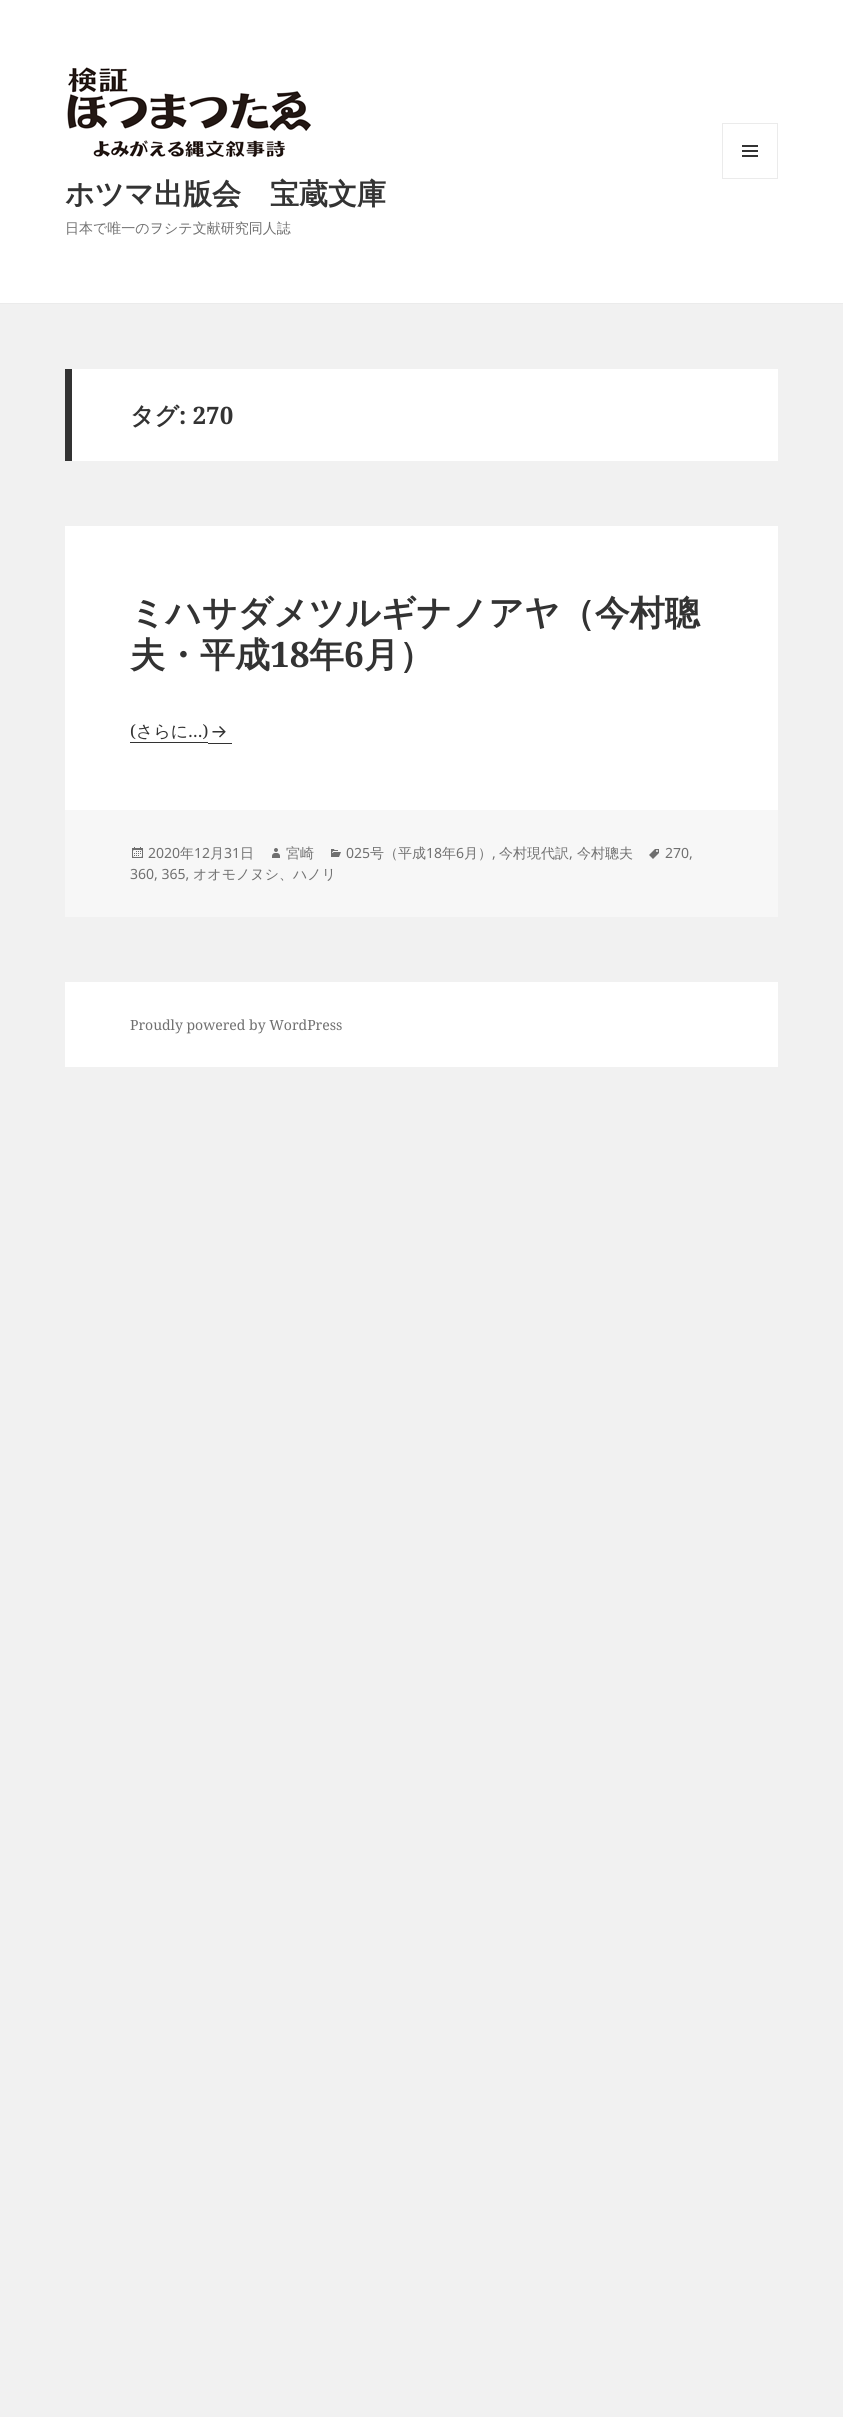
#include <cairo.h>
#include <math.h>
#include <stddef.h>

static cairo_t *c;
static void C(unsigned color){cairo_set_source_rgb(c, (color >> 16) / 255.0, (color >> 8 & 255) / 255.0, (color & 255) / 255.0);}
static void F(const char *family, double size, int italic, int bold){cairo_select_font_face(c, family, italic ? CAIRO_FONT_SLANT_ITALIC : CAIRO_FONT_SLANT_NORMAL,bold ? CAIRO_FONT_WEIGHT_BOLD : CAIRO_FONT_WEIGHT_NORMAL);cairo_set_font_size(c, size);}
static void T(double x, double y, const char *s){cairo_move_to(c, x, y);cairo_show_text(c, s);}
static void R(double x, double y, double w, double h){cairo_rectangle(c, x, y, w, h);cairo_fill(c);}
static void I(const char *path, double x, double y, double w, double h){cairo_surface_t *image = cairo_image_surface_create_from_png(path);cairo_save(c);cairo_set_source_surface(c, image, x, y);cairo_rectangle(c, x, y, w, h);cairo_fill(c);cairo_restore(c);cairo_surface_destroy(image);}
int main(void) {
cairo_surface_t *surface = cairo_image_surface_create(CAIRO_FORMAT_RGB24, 843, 2417);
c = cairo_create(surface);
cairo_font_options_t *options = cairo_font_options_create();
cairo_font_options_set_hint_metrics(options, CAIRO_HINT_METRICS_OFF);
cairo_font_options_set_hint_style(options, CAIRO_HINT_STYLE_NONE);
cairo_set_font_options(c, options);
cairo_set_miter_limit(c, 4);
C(0xf1f1f1);
cairo_paint(c);
C(0xffffff);
R(0,0,843,303);
C(0xebebeb);
R(0,303,843,1);
I("1.png",67,67,244,90);
cairo_rectangle(c,722.5,123.5,55,55);
cairo_set_line_width(c,1);
cairo_stroke(c);
I("2.png",742,145,16,12);
F("WenQuanYi Zen Hei",29,0,1);
C(0x333333);
T(65,204,"ホツマ出版会　宝蔵文庫");
F("WenQuanYi Zen Hei Medium",14,0,0);
C(0x707070);
T(65,233,"日本で唯一のヲシテ文献研究同人誌");
C(0xffffff);
R(72,369,706,92);
C(0x333333);
R(65,369,7,92);
F("WenQuanYi Zen Hei",24,0,1);
T(130,424,"タグ");
F("Noto Serif",24,0,1);
T(179,424,": 270");
C(0xffffff);
R(65,526,713,284);
F("WenQuanYi Zen Hei",35,0,1);
C(0x333333);
T(130,625,"ミハサダメツルギナノアヤ（今村聰");
T(130,667,"夫・平成");
F("Noto Serif",35,0,1);
T(270,667,"18");
F("WenQuanYi Zen Hei",35,0,1);
T(309,667,"年");
F("Noto Serif",35,0,1);
T(344,667,"6");
F("WenQuanYi Zen Hei",35,0,1);
T(364,667,"月）");
R(130,742,78,1);
R(208,743,24,1);
F("Noto Serif",17,0,0);
T(130,737,"(");
F("WenQuanYi Zen Hei Medium",17,0,0);
T(136,737,"さらに");
F("Noto Serif",17,0,0);
T(188,737,"…)");
I("3.png",212,726,14,12);
C(0xf7f7f7);
R(65,810,713,107);
I("4.png",132,847,11,11);
F("Noto Sans",14,0,0);
C(0x707070);
T(148,858,"2020");
F("WenQuanYi Zen Hei Medium",14,0,0);
T(180,858,"年");
F("Noto Sans",14,0,0);
T(194,858,"12");
F("WenQuanYi Zen Hei Medium",14,0,0);
T(210,858,"月");
F("Noto Sans",14,0,0);
T(224,858,"31");
F("WenQuanYi Zen Hei Medium",14,0,0);
T(240,858,"日");
I("5.png",272,848,8,10);
T(286,858,"宮崎");
I("6.png",331,849,10,8);
F("Noto Sans",14,0,0);
T(346,858,"025");
F("WenQuanYi Zen Hei Medium",14,0,0);
T(370,858,"号（平成");
F("Noto Sans",14,0,0);
T(426,858,"18");
F("WenQuanYi Zen Hei Medium",14,0,0);
T(442,858,"年");
F("Noto Sans",14,0,0);
T(456,858,"6");
F("WenQuanYi Zen Hei Medium",14,0,0);
T(464,858,"月）");
T(499,858,"今村現代訳");
T(577,858,"今村聰夫");
F("Noto Sans",14,0,0);
T(492,858,",");
T(569,858,",");
I("7.png",649,849,10,10);
T(665,858,"270,");
T(130,879,"360, 365,");
F("WenQuanYi Zen Hei Medium",14,0,0);
T(193,879,"オオモノヌシ、ハノリ");
C(0xffffff);
R(65,982,713,85);
F("Noto Serif",14,0,0);
C(0x707070);
T(130,1030,"Proudly powered by WordPress");
cairo_surface_write_to_png(surface, "o.png");
cairo_font_options_destroy(options);
cairo_destroy(c);
cairo_surface_destroy(surface);
return 0;
}
